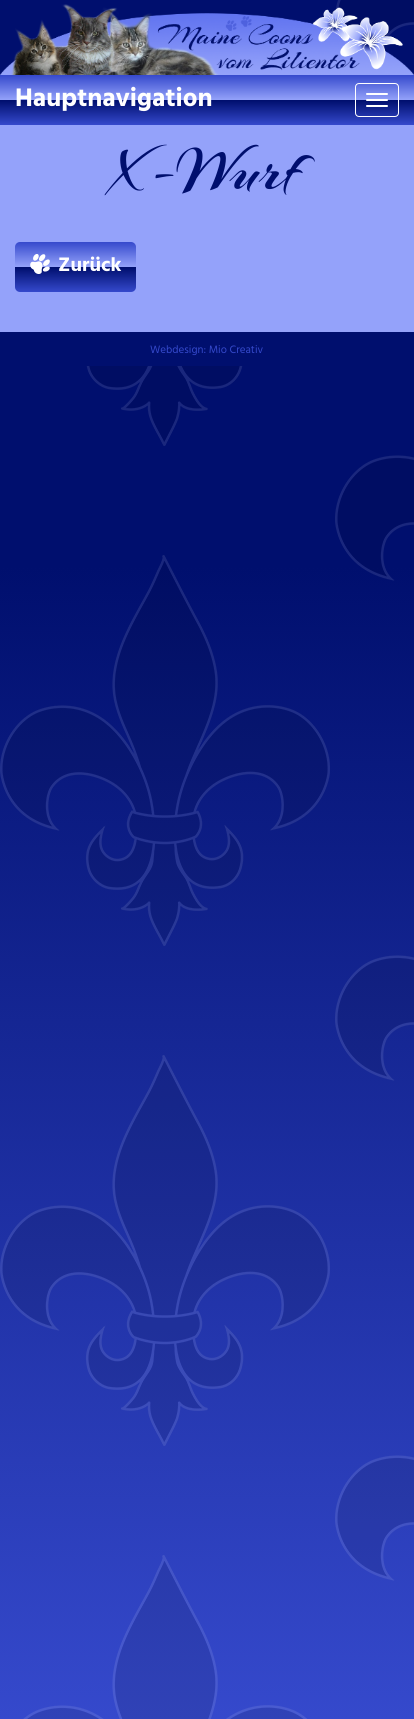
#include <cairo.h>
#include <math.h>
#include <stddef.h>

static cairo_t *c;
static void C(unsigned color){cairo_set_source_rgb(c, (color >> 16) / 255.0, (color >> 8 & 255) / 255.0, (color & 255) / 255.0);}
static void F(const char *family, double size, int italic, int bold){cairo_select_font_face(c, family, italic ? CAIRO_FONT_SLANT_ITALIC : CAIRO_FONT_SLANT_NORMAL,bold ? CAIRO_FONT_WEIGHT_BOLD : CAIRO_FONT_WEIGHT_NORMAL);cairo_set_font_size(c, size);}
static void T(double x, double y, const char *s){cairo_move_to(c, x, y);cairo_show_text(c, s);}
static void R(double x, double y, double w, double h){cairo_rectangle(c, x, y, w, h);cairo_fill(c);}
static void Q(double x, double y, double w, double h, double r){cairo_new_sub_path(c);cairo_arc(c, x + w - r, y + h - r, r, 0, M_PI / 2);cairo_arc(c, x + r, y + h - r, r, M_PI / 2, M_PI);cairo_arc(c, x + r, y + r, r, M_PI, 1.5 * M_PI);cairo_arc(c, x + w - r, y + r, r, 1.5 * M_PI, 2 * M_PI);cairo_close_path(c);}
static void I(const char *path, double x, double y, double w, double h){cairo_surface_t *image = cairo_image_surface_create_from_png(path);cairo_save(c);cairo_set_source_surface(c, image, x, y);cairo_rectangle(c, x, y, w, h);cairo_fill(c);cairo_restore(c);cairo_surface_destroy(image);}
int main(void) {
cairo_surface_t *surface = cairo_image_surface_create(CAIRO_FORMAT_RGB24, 414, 1719);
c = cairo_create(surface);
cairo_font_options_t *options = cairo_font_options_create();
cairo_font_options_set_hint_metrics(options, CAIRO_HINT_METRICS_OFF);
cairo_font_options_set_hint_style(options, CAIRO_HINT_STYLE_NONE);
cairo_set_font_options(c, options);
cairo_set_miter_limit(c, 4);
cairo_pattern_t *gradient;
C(0xffffff);
cairo_paint(c);
I("1.png",0,0,414,1719);
I("2.png",0,4,414,71);
gradient = cairo_pattern_create_linear(207,75,207,125);
cairo_pattern_add_color_stop_rgba(gradient,0,0.208,0.286,0.8,1);
cairo_pattern_add_color_stop_rgba(gradient,.5,0.58,0.635,0.98,1);
cairo_pattern_add_color_stop_rgba(gradient,.51,0,0.059,0.431,1);
cairo_pattern_add_color_stop_rgba(gradient,1,0.208,0.286,0.8,1);
cairo_set_source(c,gradient);
cairo_pattern_destroy(gradient);
R(0,75,414,50);
F("Hind",26,0,1);
C(0xffffff);
T(15,106,"Hauptnavigation");
Q(355.5,83.5,43,33,3.5);
cairo_set_line_width(c,1);
cairo_stroke(c);
Q(366,93,22,2,1);
cairo_fill(c);
Q(366,99,22,2,1);
cairo_fill(c);
Q(366,105,22,2,1);
cairo_fill(c);
C(0x94a2fa);
R(0,125,414,207);
F("Arizonia",66,0,0);
C(0x000f6e);
T(114,189,"X-Wurf");
gradient = cairo_pattern_create_linear(76,242,76,292);
cairo_pattern_add_color_stop_rgba(gradient,0,0.208,0.286,0.8,1);
cairo_pattern_add_color_stop_rgba(gradient,.5,0.58,0.635,0.98,1);
cairo_pattern_add_color_stop_rgba(gradient,.51,0,0.059,0.431,1);
cairo_pattern_add_color_stop_rgba(gradient,1,0.208,0.286,0.8,1);
cairo_set_source(c,gradient);
cairo_pattern_destroy(gradient);
Q(15,242,121,50,5);
cairo_fill(c);
I("3.png",30,254,20,20);
F("Hind",20,0,1);
C(0xffffff);
T(58,271,"Zurück");
C(0x000f6e);
cairo_new_path(c);
cairo_move_to(c,0,332);
cairo_line_to(c,414,332);
cairo_line_to(c,414,356);
cairo_curve_to(c,414,361.5,409.5,366,404,366);
cairo_line_to(c,10,366);
cairo_curve_to(c,4.5,366,0,361.5,0,356);
cairo_close_path(c);
cairo_fill(c);
F("Hind",11,0,0);
C(0x3549cc);
T(150,353,"Webdesign: Mio Creativ");
cairo_surface_write_to_png(surface, "o.png");
cairo_font_options_destroy(options);
cairo_destroy(c);
cairo_surface_destroy(surface);
return 0;
}
